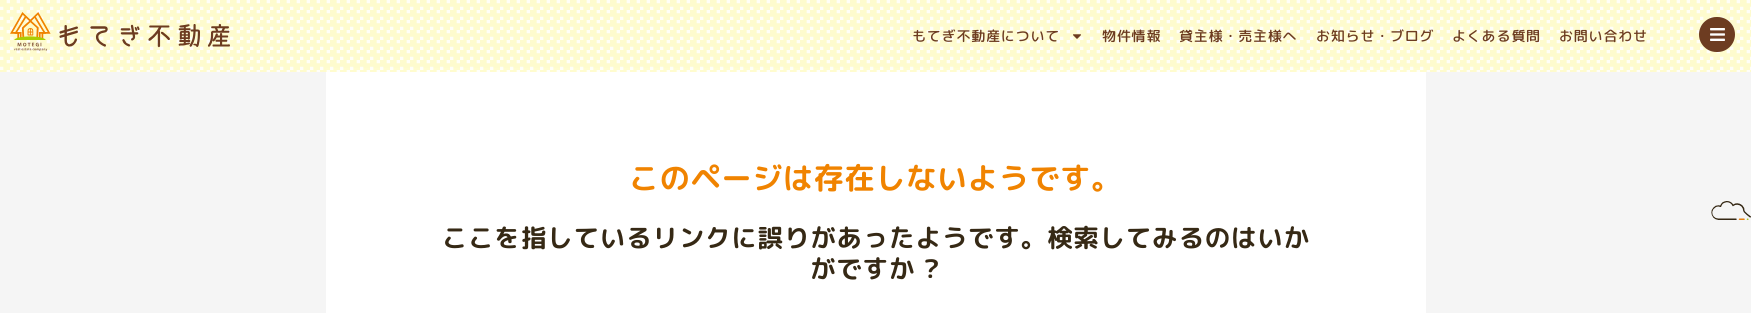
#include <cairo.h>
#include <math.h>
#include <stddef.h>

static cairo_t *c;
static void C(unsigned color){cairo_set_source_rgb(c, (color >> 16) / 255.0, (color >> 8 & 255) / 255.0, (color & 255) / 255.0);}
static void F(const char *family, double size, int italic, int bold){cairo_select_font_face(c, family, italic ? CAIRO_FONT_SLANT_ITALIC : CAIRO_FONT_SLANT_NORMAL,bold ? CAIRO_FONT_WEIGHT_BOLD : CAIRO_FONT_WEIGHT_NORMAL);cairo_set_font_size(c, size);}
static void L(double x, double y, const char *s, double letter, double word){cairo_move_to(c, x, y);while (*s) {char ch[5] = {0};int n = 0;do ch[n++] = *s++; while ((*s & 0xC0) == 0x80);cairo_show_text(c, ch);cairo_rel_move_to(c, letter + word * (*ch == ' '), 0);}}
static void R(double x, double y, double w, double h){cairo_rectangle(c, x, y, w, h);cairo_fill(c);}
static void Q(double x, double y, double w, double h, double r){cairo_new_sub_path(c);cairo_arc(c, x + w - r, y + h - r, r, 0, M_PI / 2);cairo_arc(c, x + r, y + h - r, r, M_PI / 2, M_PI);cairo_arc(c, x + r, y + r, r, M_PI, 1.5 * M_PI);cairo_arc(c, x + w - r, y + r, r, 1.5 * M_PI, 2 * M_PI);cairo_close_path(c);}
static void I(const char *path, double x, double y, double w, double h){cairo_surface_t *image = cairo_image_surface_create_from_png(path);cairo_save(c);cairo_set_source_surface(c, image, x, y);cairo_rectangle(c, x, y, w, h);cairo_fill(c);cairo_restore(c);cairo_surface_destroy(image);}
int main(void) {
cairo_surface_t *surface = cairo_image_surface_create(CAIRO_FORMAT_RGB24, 1751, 313);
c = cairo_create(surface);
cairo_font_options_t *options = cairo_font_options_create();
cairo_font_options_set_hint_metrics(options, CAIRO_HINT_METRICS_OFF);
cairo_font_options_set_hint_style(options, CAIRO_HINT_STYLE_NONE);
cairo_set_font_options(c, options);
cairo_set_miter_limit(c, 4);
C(0xf5f5f5);
cairo_paint(c);
I("1.png",1637,0,114,220);
C(0xffffff);
R(326,68,1100,245);
cairo_set_source_rgba(c,1,0.984,0.78,0.85);
R(0,0,1751,72);
I("2.png",0,0,1751,72);
I("3.png",10,12,220,39);
F("Rounded Mplus 1c Medium",14,0,0);
C(0x6d3c21);
L(912,41,"もてぎ不動産について",.8,0);
I("4.png",1073,34,8,5);
L(1102,41,"物件情報",.8,0);
L(1179,41,"貸主様・売主様へ",.8,0);
L(1316,41,"お知らせ・ブログ",.8,0);
L(1452,41,"よくある質問",.8,0);
L(1559,41,"お問い合わせ",.8,0);
Q(1699,17,36,35,17.5);
cairo_fill(c);
I("5.png",1710,28,15,13);
F("Rounded Mplus 1c Bold",30,0,1);
C(0xf08300);
L(629,189,"このページは存在しないようです。",.8,0);
F("Rounded Mplus 1c Bold",25.5,0,1);
C(0x362915);
L(442,247,"ここを指しているリンクに誤りがあったようです。検索してみるのはいか",.8,0);
L(810,278,"がですか ?",.8,0);
cairo_surface_write_to_png(surface, "o.png");
cairo_font_options_destroy(options);
cairo_destroy(c);
cairo_surface_destroy(surface);
return 0;
}
